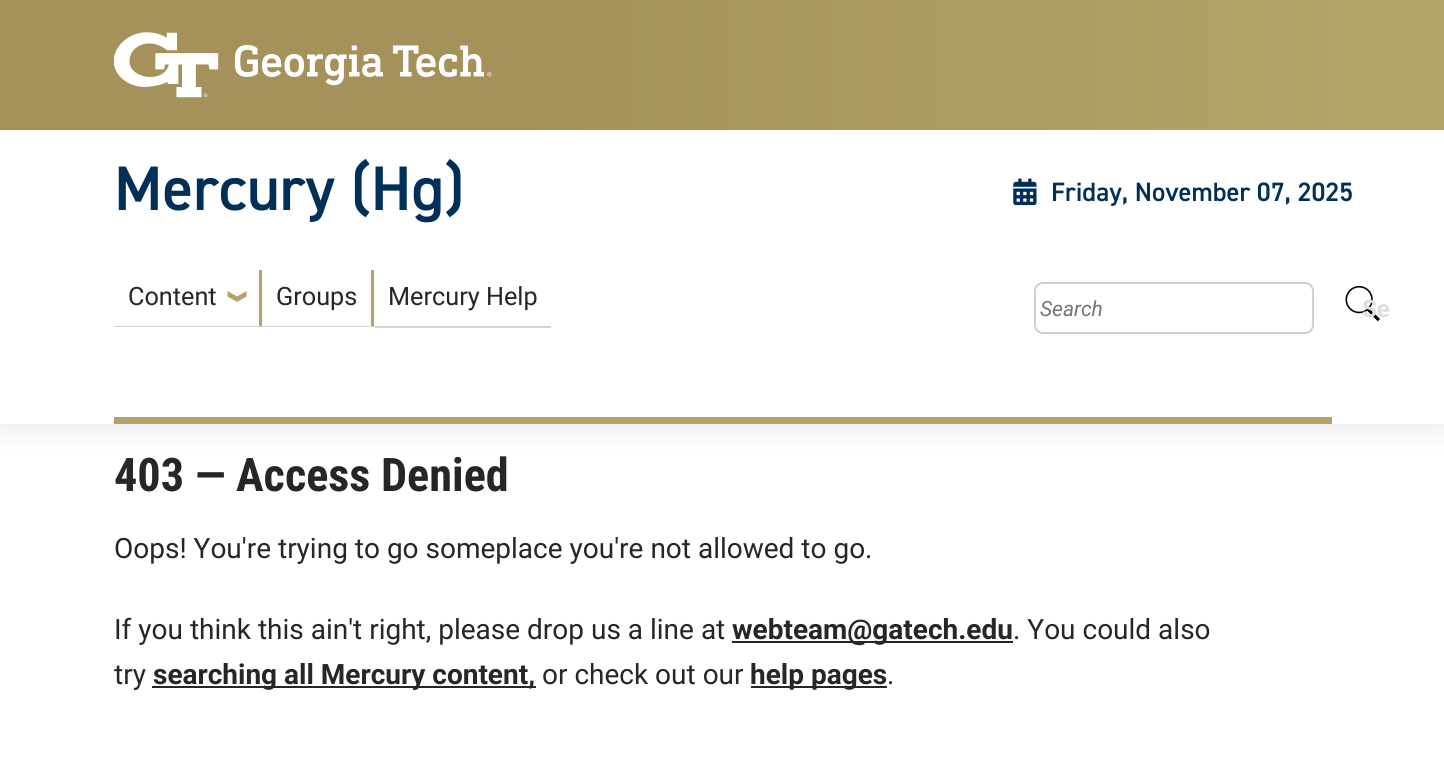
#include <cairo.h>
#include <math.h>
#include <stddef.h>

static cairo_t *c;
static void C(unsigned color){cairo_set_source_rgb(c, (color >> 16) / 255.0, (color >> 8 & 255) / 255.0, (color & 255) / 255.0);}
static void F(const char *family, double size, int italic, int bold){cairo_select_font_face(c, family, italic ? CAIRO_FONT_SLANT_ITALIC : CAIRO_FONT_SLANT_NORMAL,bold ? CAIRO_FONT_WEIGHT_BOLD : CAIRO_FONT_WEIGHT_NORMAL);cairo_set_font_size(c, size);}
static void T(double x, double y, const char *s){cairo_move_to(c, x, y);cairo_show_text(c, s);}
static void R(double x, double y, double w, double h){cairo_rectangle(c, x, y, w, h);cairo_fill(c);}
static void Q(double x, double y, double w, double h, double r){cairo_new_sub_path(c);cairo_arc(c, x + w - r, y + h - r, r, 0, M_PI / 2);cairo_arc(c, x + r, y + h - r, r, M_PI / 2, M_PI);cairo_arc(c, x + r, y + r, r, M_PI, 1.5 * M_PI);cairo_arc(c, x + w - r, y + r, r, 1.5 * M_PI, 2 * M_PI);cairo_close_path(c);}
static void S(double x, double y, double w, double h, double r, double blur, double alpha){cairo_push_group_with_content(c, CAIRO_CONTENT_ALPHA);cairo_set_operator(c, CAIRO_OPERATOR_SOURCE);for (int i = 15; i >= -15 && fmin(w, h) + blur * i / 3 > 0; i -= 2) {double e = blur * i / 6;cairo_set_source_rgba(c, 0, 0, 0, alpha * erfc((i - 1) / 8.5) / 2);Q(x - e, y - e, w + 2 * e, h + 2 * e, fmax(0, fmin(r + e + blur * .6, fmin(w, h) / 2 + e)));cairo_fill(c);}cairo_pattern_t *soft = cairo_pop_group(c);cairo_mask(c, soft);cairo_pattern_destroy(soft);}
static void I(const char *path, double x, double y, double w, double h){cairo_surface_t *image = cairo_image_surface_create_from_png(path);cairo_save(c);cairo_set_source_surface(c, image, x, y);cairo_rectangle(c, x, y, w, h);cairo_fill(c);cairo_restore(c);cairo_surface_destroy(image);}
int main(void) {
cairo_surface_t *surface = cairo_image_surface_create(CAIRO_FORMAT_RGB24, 1444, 765);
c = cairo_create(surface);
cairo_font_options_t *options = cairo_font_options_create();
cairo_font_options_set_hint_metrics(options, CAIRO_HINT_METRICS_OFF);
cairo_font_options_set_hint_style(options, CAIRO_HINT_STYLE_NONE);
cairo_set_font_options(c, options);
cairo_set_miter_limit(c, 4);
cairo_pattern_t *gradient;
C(0xffffff);
cairo_paint(c);
cairo_save(c);
cairo_set_fill_rule(c,CAIRO_FILL_RULE_EVEN_ODD);
cairo_new_path(c);
cairo_move_to(c,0,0);
cairo_line_to(c,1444,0);
cairo_line_to(c,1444,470);
cairo_line_to(c,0,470);
cairo_close_path(c);
cairo_move_to(c,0,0);
cairo_line_to(c,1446,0);
cairo_line_to(c,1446,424);
cairo_line_to(c,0,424);
cairo_close_path(c);
cairo_clip(c);
C(0x000000);
S(0,4,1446,423,0,14,.1);
cairo_restore(c);
C(0xa4925a);
R(0,0,513,130);
C(0xb3a369);
R(1353,0,91,130);
I("1.png",114,32,378,66);
gradient = cairo_pattern_create_linear(513,65,1353,65);
cairo_pattern_add_color_stop_rgba(gradient,0,0.643,0.573,0.353,1);
cairo_pattern_add_color_stop_rgba(gradient,1,0.702,0.639,0.412,1);
cairo_set_source(c,gradient);
cairo_pattern_destroy(gradient);
R(513,0,840,130);
F("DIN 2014 SemiBold",63,0,0);
C(0x003057);
T(114,210,"Mercury (Hg)");
I("2.png",1013,178,24,28);
F("DIN 2014 SemiBold",26.6,0,0);
T(1051,201,"Friday, November 07, 2025");
C(0xb3a369);
R(114,417,1218,7);
cairo_new_path(c);
cairo_move_to(c,262,270);
cairo_line_to(c,262,327);
cairo_line_to(c,259,326);
cairo_line_to(c,259,270);
cairo_close_path(c);
cairo_fill(c);
C(0xced4da);
cairo_new_path(c);
cairo_move_to(c,262,327);
cairo_line_to(c,114,327);
cairo_line_to(c,114,326);
cairo_line_to(c,259,326);
cairo_close_path(c);
cairo_fill(c);
F("Roboto",25.25,0,0);
C(0x262626);
T(128,305,"Content");
C(0xb3a369);
cairo_new_path(c);
cairo_move_to(c,246.5,296.5);
cairo_line_to(c,246.5,291);
cairo_line_to(c,237,296.5);
cairo_line_to(c,227.5,291);
cairo_line_to(c,227.5,296.5);
cairo_line_to(c,237,302);
cairo_close_path(c);
cairo_fill(c);
cairo_new_path(c);
cairo_move_to(c,374,270);
cairo_line_to(c,374,327);
cairo_line_to(c,371,326);
cairo_line_to(c,371,270);
cairo_close_path(c);
cairo_fill(c);
C(0xced4da);
cairo_new_path(c);
cairo_move_to(c,374,327);
cairo_line_to(c,262,327);
cairo_line_to(c,262,326);
cairo_line_to(c,371,326);
cairo_close_path(c);
cairo_fill(c);
C(0x262626);
T(276,305,"Groups");
C(0xced4da);
R(375,326,176,2);
C(0x262626);
T(388,305,"Mercury Help");
Q(1035,283,278,50,8);
C(0xd0d0d0);
cairo_stroke(c);
F("Roboto",21,1,0);
C(0x757575);
T(1040,316,"Search");
I("3.png",1345,285,35,37);
F("Roboto",24,0,1);
C(0xdddddd);
T(1362,317,"Se");
F("Roboto Condensed",46.25,0,1);
C(0x262626);
T(114,491,"403 — Access Denied");
F("Roboto",28,0,0);
T(114,558,"Oops! You're trying to go someplace you're not allowed to go.");
T(114,639,"If you think this ain't right, please drop us a line at");
R(732,641,281,2);
F("Roboto",28,0,1);
T(732,639,"webteam@gatech.edu");
F("Roboto",28,0,0);
T(1013,639,". You could also");
T(114,684,"try");
R(152,686,384,2);
F("Roboto",28,0,1);
T(153,684,"searching all Mercury content,");
F("Roboto",28,0,0);
T(542,684,"or check out our");
R(751,686,136,2);
F("Roboto",28,0,1);
T(750,684,"help pages");
F("Roboto",28,0,0);
T(887,684,".");
cairo_surface_write_to_png(surface, "o.png");
cairo_font_options_destroy(options);
cairo_destroy(c);
cairo_surface_destroy(surface);
return 0;
}
